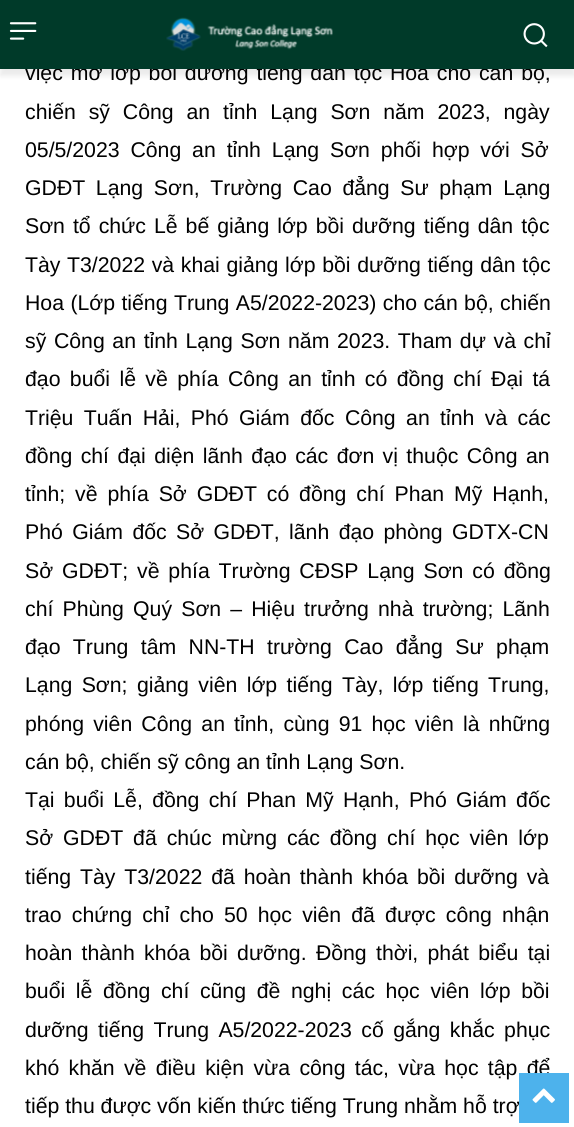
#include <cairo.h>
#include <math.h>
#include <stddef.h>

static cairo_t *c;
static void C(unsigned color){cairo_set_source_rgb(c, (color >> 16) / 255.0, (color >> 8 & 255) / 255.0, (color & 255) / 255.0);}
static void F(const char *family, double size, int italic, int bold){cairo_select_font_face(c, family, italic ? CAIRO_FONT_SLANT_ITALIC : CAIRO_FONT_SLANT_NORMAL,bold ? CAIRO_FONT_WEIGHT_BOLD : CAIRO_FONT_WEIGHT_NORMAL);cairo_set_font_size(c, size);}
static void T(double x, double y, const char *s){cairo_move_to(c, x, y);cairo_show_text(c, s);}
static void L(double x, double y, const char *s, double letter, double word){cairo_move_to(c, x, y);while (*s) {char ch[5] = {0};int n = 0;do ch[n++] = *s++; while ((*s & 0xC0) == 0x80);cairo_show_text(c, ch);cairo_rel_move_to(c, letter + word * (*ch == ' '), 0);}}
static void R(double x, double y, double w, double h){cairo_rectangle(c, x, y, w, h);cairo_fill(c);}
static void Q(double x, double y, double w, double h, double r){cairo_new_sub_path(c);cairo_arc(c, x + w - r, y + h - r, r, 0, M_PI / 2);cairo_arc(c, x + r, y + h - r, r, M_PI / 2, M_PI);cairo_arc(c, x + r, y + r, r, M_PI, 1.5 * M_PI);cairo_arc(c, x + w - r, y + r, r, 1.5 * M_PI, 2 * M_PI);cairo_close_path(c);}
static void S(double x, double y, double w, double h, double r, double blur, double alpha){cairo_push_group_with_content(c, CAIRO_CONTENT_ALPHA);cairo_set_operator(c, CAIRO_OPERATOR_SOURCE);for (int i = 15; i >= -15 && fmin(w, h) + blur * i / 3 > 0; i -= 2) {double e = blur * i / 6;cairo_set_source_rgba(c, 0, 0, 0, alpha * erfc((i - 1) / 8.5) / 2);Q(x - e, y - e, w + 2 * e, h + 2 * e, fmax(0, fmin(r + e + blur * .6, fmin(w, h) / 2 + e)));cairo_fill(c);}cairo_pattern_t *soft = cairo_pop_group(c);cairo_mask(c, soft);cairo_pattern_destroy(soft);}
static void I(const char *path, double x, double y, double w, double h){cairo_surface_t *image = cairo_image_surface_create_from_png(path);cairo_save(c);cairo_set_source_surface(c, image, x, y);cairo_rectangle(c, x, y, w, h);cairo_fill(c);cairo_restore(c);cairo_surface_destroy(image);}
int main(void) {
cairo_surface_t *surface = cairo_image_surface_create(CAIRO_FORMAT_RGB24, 574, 1127);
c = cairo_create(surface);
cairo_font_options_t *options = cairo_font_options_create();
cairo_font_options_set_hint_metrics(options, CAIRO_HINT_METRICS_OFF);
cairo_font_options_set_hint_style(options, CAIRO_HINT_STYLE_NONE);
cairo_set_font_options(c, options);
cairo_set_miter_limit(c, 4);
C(0xffffff);
cairo_paint(c);
F("Arimo",21.25,0,0);
C(0x010101);
L(25,80,"việc mở lớp bồi dưỡng tiếng dân tộc Hoa cho cán bộ,",0,2);
C(0x003a29);
R(0,0,574,69);
I("1.png",9,22,28,18);
I("2.png",166,17,167,34);
I("3.png",523,23,25,25);
cairo_save(c);
cairo_set_fill_rule(c,CAIRO_FILL_RULE_EVEN_ODD);
cairo_new_path(c);
cairo_move_to(c,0,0);
cairo_line_to(c,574,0);
cairo_line_to(c,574,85);
cairo_line_to(c,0,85);
cairo_close_path(c);
cairo_move_to(c,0,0);
cairo_line_to(c,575,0);
cairo_line_to(c,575,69);
cairo_line_to(c,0,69);
cairo_close_path(c);
cairo_clip(c);
C(0x000000);
S(0,8,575,68,0,2.5,.08);
cairo_restore(c);
C(0x010101);
L(25,119,"chiến sỹ Công an tỉnh Lạng Sơn năm 2023, ngày",0,7);
L(25,157,"05/5/2023 Công an tỉnh Lạng Sơn phối hợp với Sở",0,5);
L(25,195,"GDĐT Lạng Sơn, Trường Cao đẳng Sư phạm Lạng",0,4.75);
L(25,233,"Sơn tổ chức Lễ bế giảng lớp bồi dưỡng tiếng dân tộc",0,2.1);
L(25,272,"Tày T3/2022 và khai giảng lớp bồi dưỡng tiếng dân tộc",0,.75);
L(25,310,"Hoa (Lớp tiếng Trung A5/2022-2023) cho cán bộ, chiến",0,.5);
L(25,348,"sỹ Công an tỉnh Lạng Sơn năm 2023. Tham dự và chỉ",0,1.75);
L(25,386,"đạo buổi lễ về phía Công an tỉnh có đồng chí Đại tá",0,3.5);
L(25,425,"Triệu Tuấn Hải, Phó Giám đốc Công an tỉnh và các",0,4.5);
L(25,463,"đồng chí đại diện lãnh đạo các đơn vị thuộc Công an",0,2.5);
L(25,501,"tỉnh; về phía Sở GDĐT có đồng chí Phan Mỹ Hạnh,",0,4);
L(25,539,"Phó Giám đốc Sở GDĐT, lãnh đạo phòng GDTX-CN",0,3.5);
L(25,578,"Sở GDĐT; về phía Trường CĐSP Lạng Sơn có đồng",0,3);
L(25,616,"chí Phùng Quý Sơn – Hiệu trưởng nhà trường; Lãnh",0,3.25);
L(25,654,"đạo Trung tâm NN-TH trường Cao đẳng Sư phạm",0,6.5);
L(25,692,"Lạng Sơn; giảng viên lớp tiếng Tày, lớp tiếng Trung,",0,3.5);
L(25,731,"phóng viên Công an tỉnh, cùng 91 học viên là những",0,3.25);
T(25,769,"cán bộ, chiến sỹ công an tỉnh Lạng Sơn.");
L(25,807,"Tại buổi Lễ, đồng chí Phan Mỹ Hạnh, Phó Giám đốc",0,3.4);
L(25,845,"Sở GDĐT đã chúc mừng các đồng chí học viên lớp",0,4);
L(25,884,"tiếng Tày T3/2022 đã hoàn thành khóa bồi dưỡng và",0,3);
L(25,922,"trao chứng chỉ cho 50 học viên đã được công nhận",0,4.25);
L(25,960,"hoàn thành khóa bồi dưỡng. Đồng thời, phát biểu tại",0,3.4);
L(25,998,"buổi lễ đồng chí cũng đề nghị các học viên lớp bồi",0,4.75);
L(25,1037,"dưỡng tiếng Trung A5/2022-2023 cố gắng khắc phục",0,3.5);
L(25,1075,"khó khăn về điều kiện vừa công tác, vừa học tập để",0,3.4);
T(25,1113,"tiếp thu được vốn kiến thức tiếng Trung nhằm hỗ trợ");
C(0x4db2ec);
R(519,1073,50,50);
I("4.png",532,1088,23,15);
cairo_surface_write_to_png(surface, "o.png");
cairo_font_options_destroy(options);
cairo_destroy(c);
cairo_surface_destroy(surface);
return 0;
}
